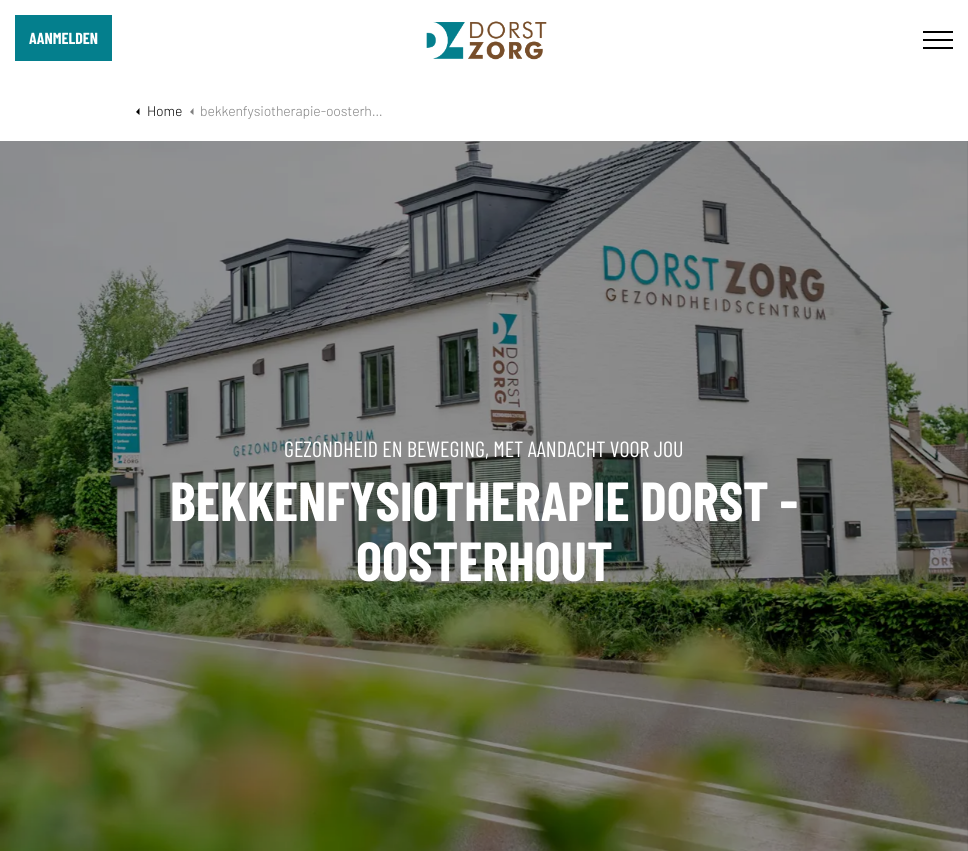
#include <cairo.h>
#include <math.h>
#include <stddef.h>

static cairo_t *c;
static void C(unsigned color){cairo_set_source_rgb(c, (color >> 16) / 255.0, (color >> 8 & 255) / 255.0, (color & 255) / 255.0);}
static void F(const char *family, double size, int italic, int bold){cairo_select_font_face(c, family, italic ? CAIRO_FONT_SLANT_ITALIC : CAIRO_FONT_SLANT_NORMAL,bold ? CAIRO_FONT_WEIGHT_BOLD : CAIRO_FONT_WEIGHT_NORMAL);cairo_set_font_size(c, size);}
static void T(double x, double y, const char *s){cairo_move_to(c, x, y);cairo_show_text(c, s);}
static void L(double x, double y, const char *s, double letter, double word){cairo_move_to(c, x, y);while (*s) {char ch[5] = {0};int n = 0;do ch[n++] = *s++; while ((*s & 0xC0) == 0x80);cairo_show_text(c, ch);cairo_rel_move_to(c, letter + word * (*ch == ' '), 0);}}
static void R(double x, double y, double w, double h){cairo_rectangle(c, x, y, w, h);cairo_fill(c);}
static void I(const char *path, double x, double y, double w, double h){cairo_surface_t *image = cairo_image_surface_create_from_png(path);cairo_save(c);cairo_set_source_surface(c, image, x, y);cairo_rectangle(c, x, y, w, h);cairo_fill(c);cairo_restore(c);cairo_surface_destroy(image);}
int main(void) {
cairo_surface_t *surface = cairo_image_surface_create(CAIRO_FORMAT_RGB24, 968, 851);
c = cairo_create(surface);
cairo_font_options_t *options = cairo_font_options_create();
cairo_font_options_set_hint_metrics(options, CAIRO_HINT_METRICS_OFF);
cairo_font_options_set_hint_style(options, CAIRO_HINT_STYLE_NONE);
cairo_set_font_options(c, options);
cairo_set_miter_limit(c, 4);
C(0xffffff);
cairo_paint(c);
I("1.png",426,21,121,39);
C(0x000000);
R(923,39,30,2);
R(923,31,30,2);
R(923,47,30,2);
C(0x047f8d);
R(15,15,97,46);
F("Barlow Condensed",16,0,1);
C(0xffffff);
T(29,44,"AANMELDEN");
C(0x000000);
cairo_new_path(c);
cairo_move_to(c,139.5,108);
cairo_line_to(c,139.5,115);
cairo_line_to(c,136,112);
cairo_close_path(c);
cairo_fill(c);
F("Barlow Light",14,0,0);
L(147,116,"Home",-.15,0);
C(0x808080);
cairo_new_path(c);
cairo_move_to(c,193.5,108);
cairo_line_to(c,193.5,115);
cairo_line_to(c,190,112);
cairo_close_path(c);
cairo_fill(c);
L(200,116,"bekkenfysiotherapie-oosterh…",-.15,0);
C(0x000000);
R(0,141,968,710);
I("2.png",0,141,968,710);
F("Barlow Condensed",22,0,0);
C(0xffffff);
T(284,457,"GEZONDHEID EN BEWEGING, MET AANDACHT VOOR JOU");
F("Barlow Condensed",55,0,1);
T(170,521,"BEKKENFYSIOTHERAPIE DORST -");
T(356,581,"OOSTERHOUT");
cairo_surface_write_to_png(surface, "o.png");
cairo_font_options_destroy(options);
cairo_destroy(c);
cairo_surface_destroy(surface);
return 0;
}
